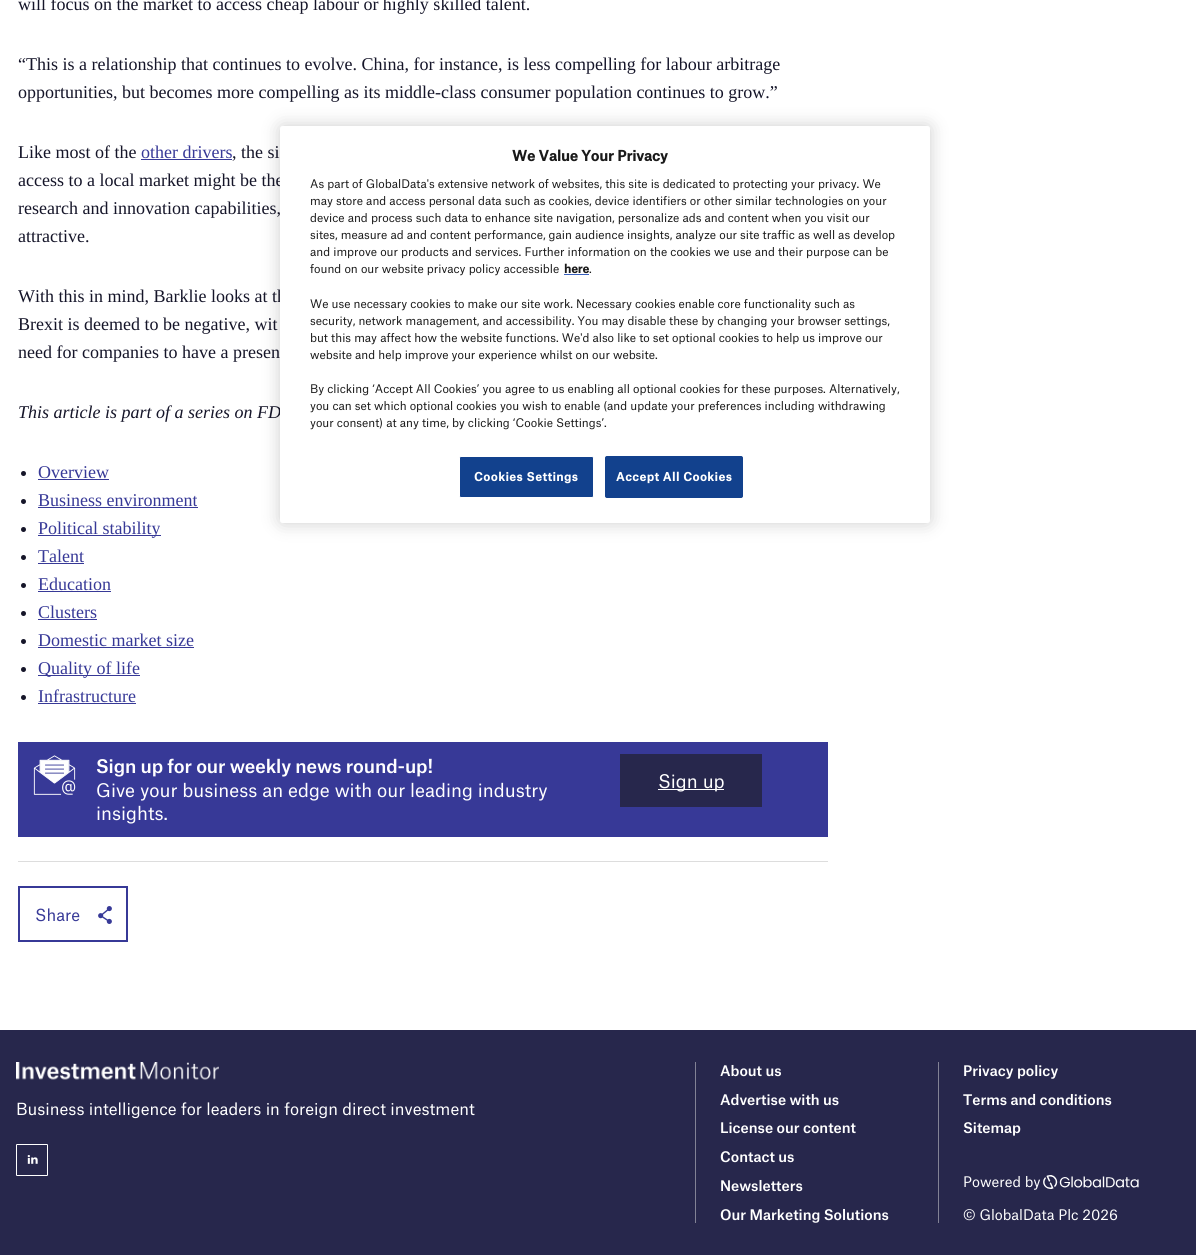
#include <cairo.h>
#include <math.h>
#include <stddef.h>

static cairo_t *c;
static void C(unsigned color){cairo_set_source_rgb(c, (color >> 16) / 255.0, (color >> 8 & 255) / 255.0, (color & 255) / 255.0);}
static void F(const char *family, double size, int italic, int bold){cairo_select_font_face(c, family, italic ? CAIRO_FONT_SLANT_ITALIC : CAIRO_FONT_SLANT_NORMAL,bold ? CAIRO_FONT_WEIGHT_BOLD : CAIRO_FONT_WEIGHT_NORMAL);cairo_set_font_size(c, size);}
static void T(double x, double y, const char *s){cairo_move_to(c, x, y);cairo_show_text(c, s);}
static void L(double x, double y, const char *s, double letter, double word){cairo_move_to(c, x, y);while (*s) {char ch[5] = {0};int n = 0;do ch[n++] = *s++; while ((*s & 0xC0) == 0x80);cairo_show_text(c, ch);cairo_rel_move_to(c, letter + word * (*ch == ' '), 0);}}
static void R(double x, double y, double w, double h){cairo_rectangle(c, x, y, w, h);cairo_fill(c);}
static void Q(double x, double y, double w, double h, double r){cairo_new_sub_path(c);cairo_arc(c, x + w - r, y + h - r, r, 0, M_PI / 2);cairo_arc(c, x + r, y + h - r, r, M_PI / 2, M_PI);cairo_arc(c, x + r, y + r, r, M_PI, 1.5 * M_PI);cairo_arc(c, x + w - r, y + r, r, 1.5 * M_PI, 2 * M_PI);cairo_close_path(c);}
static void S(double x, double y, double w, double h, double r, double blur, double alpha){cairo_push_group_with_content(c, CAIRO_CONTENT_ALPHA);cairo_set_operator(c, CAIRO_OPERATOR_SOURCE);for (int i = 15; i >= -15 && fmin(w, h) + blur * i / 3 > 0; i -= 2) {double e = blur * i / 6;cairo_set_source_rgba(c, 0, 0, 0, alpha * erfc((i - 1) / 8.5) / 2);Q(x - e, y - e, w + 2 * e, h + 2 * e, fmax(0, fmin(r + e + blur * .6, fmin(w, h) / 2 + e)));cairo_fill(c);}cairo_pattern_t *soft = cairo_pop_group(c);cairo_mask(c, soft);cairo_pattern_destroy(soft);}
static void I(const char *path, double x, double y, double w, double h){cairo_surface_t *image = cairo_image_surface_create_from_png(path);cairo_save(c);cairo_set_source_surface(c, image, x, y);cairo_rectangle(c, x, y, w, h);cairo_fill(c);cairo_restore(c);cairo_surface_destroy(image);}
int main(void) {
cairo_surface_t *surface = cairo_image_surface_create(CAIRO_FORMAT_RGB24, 1196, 1255);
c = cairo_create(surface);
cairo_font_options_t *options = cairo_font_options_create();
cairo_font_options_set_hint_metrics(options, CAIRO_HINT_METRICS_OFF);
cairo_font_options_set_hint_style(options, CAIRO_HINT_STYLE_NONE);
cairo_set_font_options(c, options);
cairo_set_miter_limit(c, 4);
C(0xffffff);
cairo_paint(c);
F("Liberation Serif",18,0,0);
C(0x151529);
T(18,10,"will focus on the market to access cheap labour or highly skilled talent.");
T(18,70,"“This is a relationship that continues to evolve. China, for instance, is less compelling for labour arbitrage");
T(18,98,"opportunities, but becomes more compelling as its middle-class consumer population continues to grow.”");
T(18,158,"Like most of the");
C(0x373997);
T(141,158,"other drivers");
R(141,159,91,1);
C(0x151529);
T(232,158,", the si");
T(18,186,"access to a local market might be the");
T(18,214,"research and innovation capabilities,");
T(18,242,"attractive.");
T(18,302,"With this in mind, Barklie looks at th");
T(18,330,"Brexit is deemed to be negative, wit");
T(18,358,"need for companies to have a presen");
F("Liberation Serif",18,1,0);
T(18,418,"This article is part of a series on FD");
cairo_new_path(c);
cairo_arc(c,23.5,473.5,2.5,0,2 * M_PI);
cairo_fill(c);
F("Liberation Serif",18,0,0);
C(0x373997);
T(38,478,"Overview");
R(38,479,71,1);
C(0x151529);
cairo_new_path(c);
cairo_arc(c,23.5,501.5,2.5,0,2 * M_PI);
cairo_fill(c);
C(0x373997);
T(38,506,"Business environment");
R(38,507,160,1);
C(0x151529);
cairo_new_path(c);
cairo_arc(c,23.5,529.5,2.5,0,2 * M_PI);
cairo_fill(c);
C(0x373997);
R(38,535,123,1);
T(38,534,"Political stability");
C(0x151529);
cairo_new_path(c);
cairo_arc(c,23.5,557.5,2.5,0,2 * M_PI);
cairo_fill(c);
C(0x373997);
T(38,562,"Talent");
R(38,563,46,1);
C(0x151529);
cairo_new_path(c);
cairo_arc(c,23.5,585.5,2.5,0,2 * M_PI);
cairo_fill(c);
C(0x373997);
T(38,590,"Education");
R(38,591,73,1);
C(0x151529);
cairo_new_path(c);
cairo_arc(c,23.5,613.5,2.5,0,2 * M_PI);
cairo_fill(c);
C(0x373997);
T(38,618,"Clusters");
R(38,619,59,1);
C(0x151529);
cairo_new_path(c);
cairo_arc(c,23.5,641.5,2.5,0,2 * M_PI);
cairo_fill(c);
C(0x373997);
T(38,646,"Domestic market size");
R(38,647,156,1);
C(0x151529);
cairo_new_path(c);
cairo_arc(c,23.5,669.5,2.5,0,2 * M_PI);
cairo_fill(c);
C(0x373997);
R(38,675,102,1);
T(38,674,"Quality of life");
C(0x151529);
cairo_new_path(c);
cairo_arc(c,23.5,697.5,2.5,0,2 * M_PI);
cairo_fill(c);
C(0x373997);
T(38,702,"Infrastructure");
R(38,703,98,1);
R(18,742,810,95);
I("1.png",33,755,43,40);
F("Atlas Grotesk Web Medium",18,0,0);
C(0xffffff);
L(96,773,"Sign up for our weekly news round-up!",-.1,0);
F("Atlas Grotesk Web",18,0,0);
T(96,797,"Give your business an edge with our leading industry");
T(96,820,"insights.");
C(0x27274c);
R(620,754,142,53);
C(0xffffff);
R(658,789,66,1);
T(658,788,"Sign up");
C(0xdddddd);
R(18,861,810,1);
cairo_rectangle(c,19,887,108,54);
C(0x373997);
cairo_stroke(c);
F("Atlas Grotesk Web",16,0,0);
T(35,921,"Share");
I("2.png",98,906,14,18);
C(0x000000);
S(280,126,650,397,2.5,9,.2);
C(0xffffff);
Q(280,126,650,397,2.5);
cairo_fill(c);
F("Atlas Grotesk Web",14,0,1);
C(0x1a1a1a);
T(512,161,"We Value Your Privacy");
F("Atlas Grotesk Web",11.38,0,0);
T(310,188,"As part of GlobalData's extensive network of websites, this site is dedicated to protecting your privacy. We");
T(310,205,"may store and access personal data such as cookies, device identifiers or other similar technologies on your");
T(310,222,"device and process such data to enhance site navigation, personalize ads and content when you visit our");
T(310,239,"sites, measure ad and content performance, gain audience insights, analyze our site traffic as well as develop");
T(310,256,"and improve our products and services. Further information on the cookies we use and their purpose can be");
T(310,273,"found on our website privacy policy accessible");
F("Atlas Grotesk Web",11.38,0,1);
T(564,273,"here");
C(0x3860be);
R(564,274,25,1);
F("Atlas Grotesk Web",11.38,0,0);
C(0x1a1a1a);
T(589,273,".");
T(310,308,"We use necessary cookies to make our site work. Necessary cookies enable core functionality such as");
T(310,325,"security, network management, and accessibility. You may disable these by changing your browser settings,");
T(310,342,"but this may affect how the website functions. We'd also like to set optional cookies to help us improve our");
T(310,359,"website and help improve your experience whilst on our website.");
T(310,393,"By clicking ‘Accept All Cookies’ you agree to us enabling all optional cookies for these purposes. Alternatively,");
T(310,410,"you can set which optional cookies you wish to enable (and update your preferences including withdrawing");
T(310,427,"your consent) at any time, by clicking ‘Cookie Settings’.");
C(0x12418d);
Q(459.5,456.5,134,41,1.5);
cairo_fill_preserve(c);
C(0xffffff);
cairo_set_line_width(c,1);
cairo_stroke(c);
F("Atlas Grotesk Web",11.38,0,1);
L(474,481,"Cookies Settings",.6,0);
C(0x12418d);
Q(605.5,456.5,137,41,1.5);
cairo_fill_preserve(c);
cairo_stroke(c);
C(0xffffff);
L(616,481,"Accept All Cookies",.6,0);
C(0x27274c);
R(0,1030,1196,225);
I("3.png",16,1062,203,18);
F("Atlas Grotesk Web",16,0,0);
C(0xffffff);
T(16,1115,"Business intelligence for leaders in foreign direct investment");
Q(16.5,1144.5,31,31,.5);
cairo_stroke(c);
I("4.png",27,1155,11,9);
C(0x828295);
R(695,1062,1,161);
F("Atlas Grotesk Web Medium",14,0,0);
C(0xffffff);
T(720,1076,"About us");
T(720,1105,"Advertise with us");
T(720,1133,"License our content");
T(720,1162,"Contact us");
T(720,1191,"Newsletters");
T(720,1220,"Our Marketing Solutions");
C(0x828295);
R(938,1062,1,161);
C(0xffffff);
T(963,1076,"Privacy policy");
T(963,1105,"Terms and conditions");
T(963,1133,"Sitemap");
F("Atlas Grotesk Web",14,0,0);
T(963,1187,"Powered by");
I("5.png",1043,1175,96,14);
T(963,1220,"© GlobalData Plc 2026");
cairo_surface_write_to_png(surface, "o.png");
cairo_font_options_destroy(options);
cairo_destroy(c);
cairo_surface_destroy(surface);
return 0;
}
